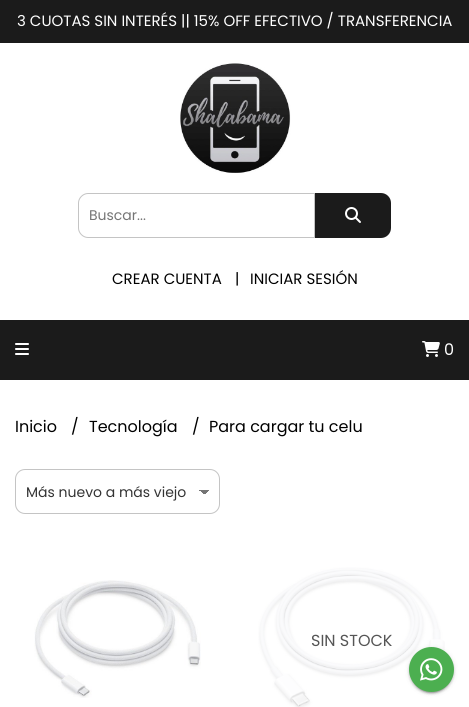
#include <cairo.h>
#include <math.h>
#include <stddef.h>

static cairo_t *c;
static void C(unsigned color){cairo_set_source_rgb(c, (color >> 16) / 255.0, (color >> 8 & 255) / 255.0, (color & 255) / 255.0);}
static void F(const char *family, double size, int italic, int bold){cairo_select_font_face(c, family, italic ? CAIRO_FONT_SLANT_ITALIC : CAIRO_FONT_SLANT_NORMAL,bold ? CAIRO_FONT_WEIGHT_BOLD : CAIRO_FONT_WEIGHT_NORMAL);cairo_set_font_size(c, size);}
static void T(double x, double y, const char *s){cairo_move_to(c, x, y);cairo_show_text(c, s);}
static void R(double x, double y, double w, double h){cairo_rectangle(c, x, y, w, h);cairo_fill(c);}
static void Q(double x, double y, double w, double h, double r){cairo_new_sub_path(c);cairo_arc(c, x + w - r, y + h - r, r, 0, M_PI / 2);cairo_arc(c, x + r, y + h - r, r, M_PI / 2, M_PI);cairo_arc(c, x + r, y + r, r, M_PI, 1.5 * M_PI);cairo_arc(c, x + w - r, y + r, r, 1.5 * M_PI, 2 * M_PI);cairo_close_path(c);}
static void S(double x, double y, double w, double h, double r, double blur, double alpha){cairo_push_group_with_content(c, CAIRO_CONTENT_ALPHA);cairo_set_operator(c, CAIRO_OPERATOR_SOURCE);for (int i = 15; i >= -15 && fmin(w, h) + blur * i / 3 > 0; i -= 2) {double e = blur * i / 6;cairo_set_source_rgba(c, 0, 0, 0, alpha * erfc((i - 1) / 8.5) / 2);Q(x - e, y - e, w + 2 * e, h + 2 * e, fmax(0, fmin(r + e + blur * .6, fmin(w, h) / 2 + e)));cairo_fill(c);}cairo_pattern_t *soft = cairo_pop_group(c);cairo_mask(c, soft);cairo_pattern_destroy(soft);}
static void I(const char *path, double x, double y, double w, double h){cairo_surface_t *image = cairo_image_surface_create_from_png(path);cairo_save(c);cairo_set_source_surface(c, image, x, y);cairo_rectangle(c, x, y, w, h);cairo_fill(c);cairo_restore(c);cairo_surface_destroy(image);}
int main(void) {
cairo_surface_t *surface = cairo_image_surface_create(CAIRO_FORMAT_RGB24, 469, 707);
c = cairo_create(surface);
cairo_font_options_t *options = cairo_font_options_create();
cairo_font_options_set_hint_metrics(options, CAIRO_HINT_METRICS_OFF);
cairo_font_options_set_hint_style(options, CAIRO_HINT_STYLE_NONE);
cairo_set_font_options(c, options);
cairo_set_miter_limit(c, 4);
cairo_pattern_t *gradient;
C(0xffffff);
cairo_paint(c);
C(0x1b1b1b);
R(0,0,469,43);
F("Poppins",15,0,0);
C(0xffffff);
T(17,26,"3 CUOTAS SIN INTERÉS || 15% OFF EFECTIVO / TRANSFERENCIA");
I("1.png",180,63,111,110);
cairo_new_path(c);
cairo_move_to(c,88,193.5);
cairo_line_to(c,314.5,193.5);
cairo_line_to(c,314.5,237.5);
cairo_line_to(c,88,237.5);
cairo_curve_to(c,83,237.5,78.5,233,78.5,228);
cairo_line_to(c,78.5,203);
cairo_curve_to(c,78.5,198,83,193.5,88,193.5);
cairo_close_path(c);
C(0xc4c4c4);
cairo_set_line_width(c,1);
cairo_stroke(c);
F("Poppins",14,0,0);
C(0x757575);
T(89,220,"Buscar...");
C(0x1b1b1b);
cairo_new_path(c);
cairo_move_to(c,315,193);
cairo_line_to(c,381,193);
cairo_curve_to(c,386.5,193,391,197.5,391,203);
cairo_line_to(c,391,228);
cairo_curve_to(c,391,233.5,386.5,238,381,238);
cairo_line_to(c,315,238);
cairo_close_path(c);
cairo_fill(c);
I("2.png",345,207,16,16);
F("Poppins",15,0,0);
C(0x000000);
T(112,284,"CREAR CUENTA");
T(235,284,"|");
T(250,284,"INICIAR SESIÓN");
C(0x1b1b1b);
R(0,320,469,60);
I("3.png",15,343,14,12);
I("4.png",422,341,18,16);
F("Poppins",16,0,0);
C(0xffffff);
T(444,355,"0");
C(0x000000);
T(15,432,"Inicio");
T(71,432,"/");
T(89,432,"Tecnología");
T(192,432,"/");
T(209,432,"Para cargar tu celu");
gradient = cairo_pattern_create_linear(204,490,209,495);
cairo_pattern_add_color_stop_rgba(gradient,.5,0.459,0.459,0.459,1);
cairo_pattern_add_color_stop_rgba(gradient,.5,1,1,1,1);
cairo_set_source(c,gradient);
cairo_pattern_destroy(gradient);
R(204,490,5,4);
gradient = cairo_pattern_create_linear(199,495,204,490);
cairo_pattern_add_color_stop_rgba(gradient,.5,1,1,1,1);
cairo_pattern_add_color_stop_rgba(gradient,.5,0.459,0.459,0.459,1);
cairo_set_source(c,gradient);
cairo_pattern_destroy(gradient);
R(199,490,5,4);
Q(15.5,469.5,204,44,9.5);
C(0xc4c4c4);
cairo_stroke(c);
F("Poppins",14,0,0);
C(0x333333);
T(26,497,"Más nuevo a más viejo");
I("5.png",34,580,167,118);
I("6.png",258,567,187,140);
F("Poppins",16,0,0);
C(0x555555);
T(311,646,"SIN STOCK");
C(0x000000);
S(411,652,41,41,20.5,.5,.2);
S(409,648,45,45,22.5,2.5,.12);
S(409,649,45,45,22.5,1,.14);
C(0x4caf50);
cairo_arc(c,431.5,669.5,22.5,0,2 * M_PI);
cairo_fill(c);
I("7.png",420,658,23,23);
cairo_surface_write_to_png(surface, "o.png");
cairo_font_options_destroy(options);
cairo_destroy(c);
cairo_surface_destroy(surface);
return 0;
}
